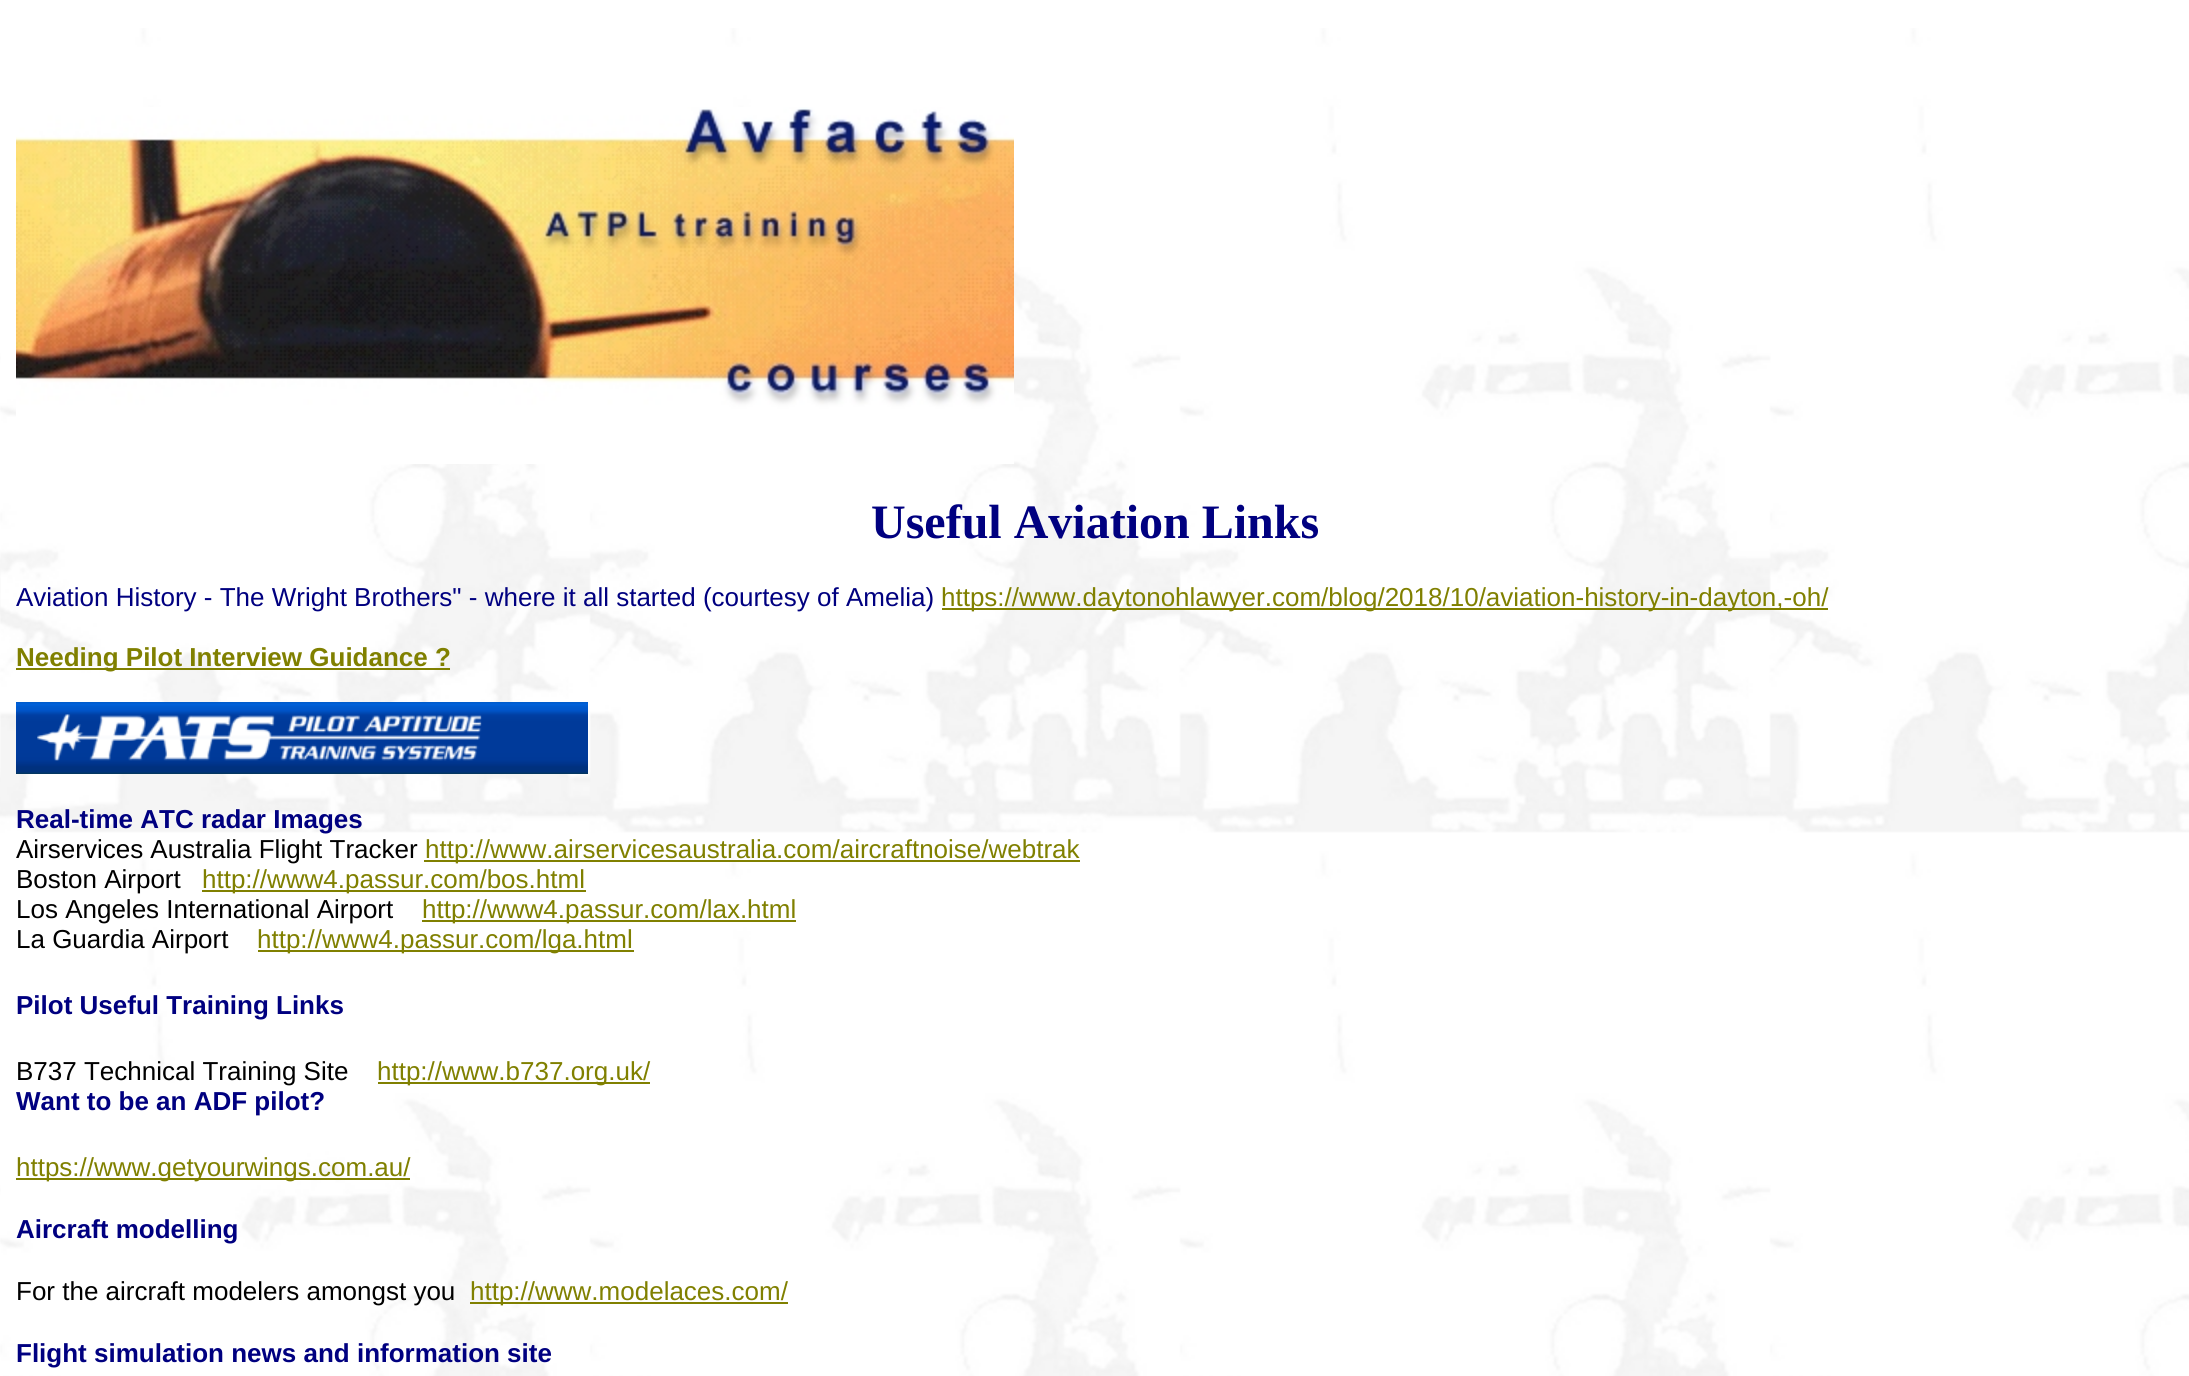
#include <cairo.h>
#include <math.h>
#include <stddef.h>

static cairo_t *c;
static void C(unsigned color){cairo_set_source_rgb(c, (color >> 16) / 255.0, (color >> 8 & 255) / 255.0, (color & 255) / 255.0);}
static void F(const char *family, double size, int italic, int bold){cairo_select_font_face(c, family, italic ? CAIRO_FONT_SLANT_ITALIC : CAIRO_FONT_SLANT_NORMAL,bold ? CAIRO_FONT_WEIGHT_BOLD : CAIRO_FONT_WEIGHT_NORMAL);cairo_set_font_size(c, size);}
static void T(double x, double y, const char *s){cairo_move_to(c, x, y);cairo_show_text(c, s);}
static void R(double x, double y, double w, double h){cairo_rectangle(c, x, y, w, h);cairo_fill(c);}
static void I(const char *path, double x, double y, double w, double h){cairo_surface_t *image = cairo_image_surface_create_from_png(path);cairo_save(c);cairo_set_source_surface(c, image, x, y);cairo_rectangle(c, x, y, w, h);cairo_fill(c);cairo_restore(c);cairo_surface_destroy(image);}
int main(void) {
cairo_surface_t *surface = cairo_image_surface_create(CAIRO_FORMAT_RGB24, 2189, 1376);
c = cairo_create(surface);
cairo_font_options_t *options = cairo_font_options_create();
cairo_font_options_set_hint_metrics(options, CAIRO_HINT_METRICS_OFF);
cairo_font_options_set_hint_style(options, CAIRO_HINT_STYLE_NONE);
cairo_set_font_options(c, options);
cairo_set_miter_limit(c, 4);
C(0xffffff);
cairo_paint(c);
I("1.png",0,28,2189,1348);
I("2.png",16,107,998,357);
F("Liberation Serif",48,0,1);
C(0x000080);
T(871,538,"Useful Aviation Links");
F("Liberation Sans",26,0,0);
T(16,606,"Aviation History - The Wright Brothers\" - where it all started (courtesy of Amelia)");
C(0x808000);
R(942,608,886,2);
T(941,606,"https://www.daytonohlawyer.com/blog/2018/10/aviation-history-in-dayton,-oh/");
R(16,668,434,2);
F("Liberation Sans",26,0,1);
T(16,666,"Needing Pilot Interview Guidance ?");
I("3.png",16,702,572,72);
C(0x000080);
T(16,828,"Real-time ATC radar Images");
F("Liberation Sans",26,0,0);
C(0x000000);
T(16,858,"Airservices Australia Flight Tracker");
C(0x808000);
R(424,860,656,2);
T(425,858,"http://www.airservicesaustralia.com/aircraftnoise/webtrak");
C(0x000000);
T(16,888,"Boston Airport");
C(0x808000);
R(202,890,384,2);
T(202,888,"http://www4.passur.com/bos.html");
C(0x000000);
T(16,918,"Los Angeles International Airport");
C(0x808000);
R(422,920,374,2);
T(422,918,"http://www4.passur.com/lax.html");
C(0x000000);
T(16,948,"La Guardia Airport");
C(0x808000);
R(258,950,376,2);
T(257,948,"http://www4.passur.com/lga.html");
F("Liberation Sans",26,0,1);
C(0x000080);
T(16,1014,"Pilot Useful Training Links");
F("Liberation Sans",26,0,0);
C(0x000000);
T(16,1080,"B737 Technical Training Site");
C(0x808000);
R(378,1082,272,2);
T(377,1080,"http://www.b737.org.uk/");
F("Liberation Sans",26,0,1);
C(0x000080);
T(16,1110,"Want to be an ADF pilot?");
C(0x808000);
R(16,1178,394,2);
F("Liberation Sans",26,0,0);
T(16,1176,"https://www.getyourwings.com.au/");
F("Liberation Sans",26,0,1);
C(0x000080);
T(16,1238,"Aircraft modelling");
F("Liberation Sans",26,0,0);
C(0x000000);
T(16,1300,"For the aircraft modelers amongst you");
C(0x808000);
R(470,1302,318,2);
T(470,1300,"http://www.modelaces.com/");
F("Liberation Sans",26,0,1);
C(0x000080);
T(16,1362,"Flight simulation news and information site");
cairo_surface_write_to_png(surface, "o.png");
cairo_font_options_destroy(options);
cairo_destroy(c);
cairo_surface_destroy(surface);
return 0;
}
